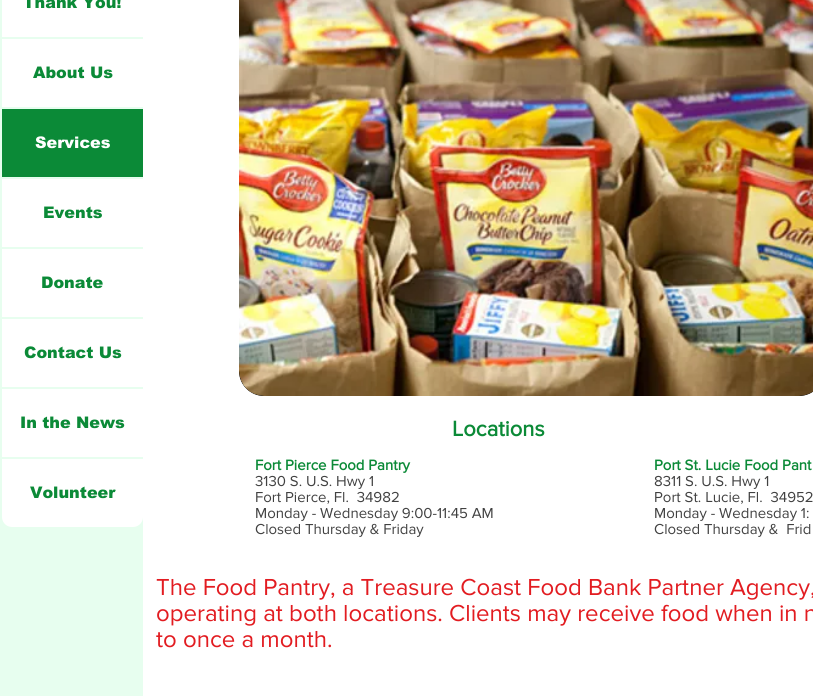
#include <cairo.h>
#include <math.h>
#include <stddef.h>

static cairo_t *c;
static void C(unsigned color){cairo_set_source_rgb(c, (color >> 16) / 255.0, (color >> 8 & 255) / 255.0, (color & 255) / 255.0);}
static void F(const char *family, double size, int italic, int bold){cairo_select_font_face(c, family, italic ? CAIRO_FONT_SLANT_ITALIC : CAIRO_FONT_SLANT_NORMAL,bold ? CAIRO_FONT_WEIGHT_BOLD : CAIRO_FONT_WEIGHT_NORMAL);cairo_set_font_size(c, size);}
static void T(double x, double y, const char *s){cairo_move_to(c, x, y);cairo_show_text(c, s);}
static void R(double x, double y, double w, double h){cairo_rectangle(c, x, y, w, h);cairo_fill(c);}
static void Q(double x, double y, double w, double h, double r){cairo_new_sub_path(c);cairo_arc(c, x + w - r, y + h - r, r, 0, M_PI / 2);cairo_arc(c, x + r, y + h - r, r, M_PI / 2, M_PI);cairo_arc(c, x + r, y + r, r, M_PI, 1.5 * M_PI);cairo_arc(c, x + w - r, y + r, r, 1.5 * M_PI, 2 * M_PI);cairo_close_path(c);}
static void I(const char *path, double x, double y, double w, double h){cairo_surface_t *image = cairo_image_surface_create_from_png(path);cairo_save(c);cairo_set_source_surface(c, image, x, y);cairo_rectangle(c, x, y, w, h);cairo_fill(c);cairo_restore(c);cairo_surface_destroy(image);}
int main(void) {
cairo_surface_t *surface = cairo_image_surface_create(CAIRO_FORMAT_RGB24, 813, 696);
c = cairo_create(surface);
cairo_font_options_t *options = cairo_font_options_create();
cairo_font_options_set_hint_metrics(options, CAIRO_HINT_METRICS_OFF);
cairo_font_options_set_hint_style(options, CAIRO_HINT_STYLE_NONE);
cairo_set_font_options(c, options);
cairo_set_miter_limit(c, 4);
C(0xe7feef);
cairo_paint(c);
C(0xffffff);
R(2,0,141,37);
F("arial Black",16,0,0);
C(0x0b8a37);
T(23,8,"Thank You!");
C(0xffffff);
R(2,39,141,68);
C(0x0b8a37);
T(33,78,"About Us");
R(2,109,141,68);
C(0xffffff);
T(35,148,"Services");
R(2,179,141,68);
C(0x0b8a37);
T(43,218,"Events");
C(0xffffff);
R(2,249,141,68);
C(0x0b8a37);
T(41,288,"Donate");
C(0xffffff);
R(2,319,141,68);
C(0x0b8a37);
T(24,358,"Contact Us");
C(0xffffff);
R(2,389,141,68);
C(0x0b8a37);
T(20,428,"In the News");
C(0xffffff);
cairo_new_path(c);
cairo_move_to(c,2,459);
cairo_line_to(c,143,459);
cairo_line_to(c,143,517);
cairo_curve_to(c,143,522.5,138.5,527,133,527);
cairo_line_to(c,12,527);
cairo_curve_to(c,6.5,527,2,522.5,2,517);
cairo_close_path(c);
cairo_fill(c);
C(0x0b8a37);
T(30,498,"Volunteer");
C(0xffffff);
R(143,0,670,696);
C(0x000000);
Q(239,-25,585,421,25);
cairo_fill(c);
I("1.png",239,0,574,396);
F("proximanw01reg",22,0,1);
C(0x0b8a37);
T(452,436,"Locations");
F("proximanw01reg",15,0,1);
T(255,470,"Fort Pierce Food Pantry");
F("proximanw01reg",15,0,0);
C(0x414141);
T(255,486,"3130 S. U.S. Hwy 1");
T(255,502,"Fort Pierce, Fl.  34982");
T(255,518,"Monday - Wednesday 9:00-11:45 AM");
T(255,534,"Closed Thursday & Friday");
F("proximanw01reg",15,0,1);
C(0x0b8a37);
T(654,470,"Port St. Lucie Food Pant");
F("proximanw01reg",15,0,0);
C(0x414141);
T(654,486,"8311 S. U.S. Hwy 1");
T(654,502,"Port St. Lucie, Fl.  34952");
T(654,518,"Monday - Wednesday 1:");
T(654,534,"Closed Thursday &  Frid");
F("proximanw01reg",24,0,0);
C(0xe21c21);
T(156,595,"The Food Pantry, a Treasure Coast Food Bank Partner Agency,");
T(156,621,"operating at both locations. Clients may receive food when in n");
T(156,647,"to once a month.");
cairo_surface_write_to_png(surface, "o.png");
cairo_font_options_destroy(options);
cairo_destroy(c);
cairo_surface_destroy(surface);
return 0;
}
